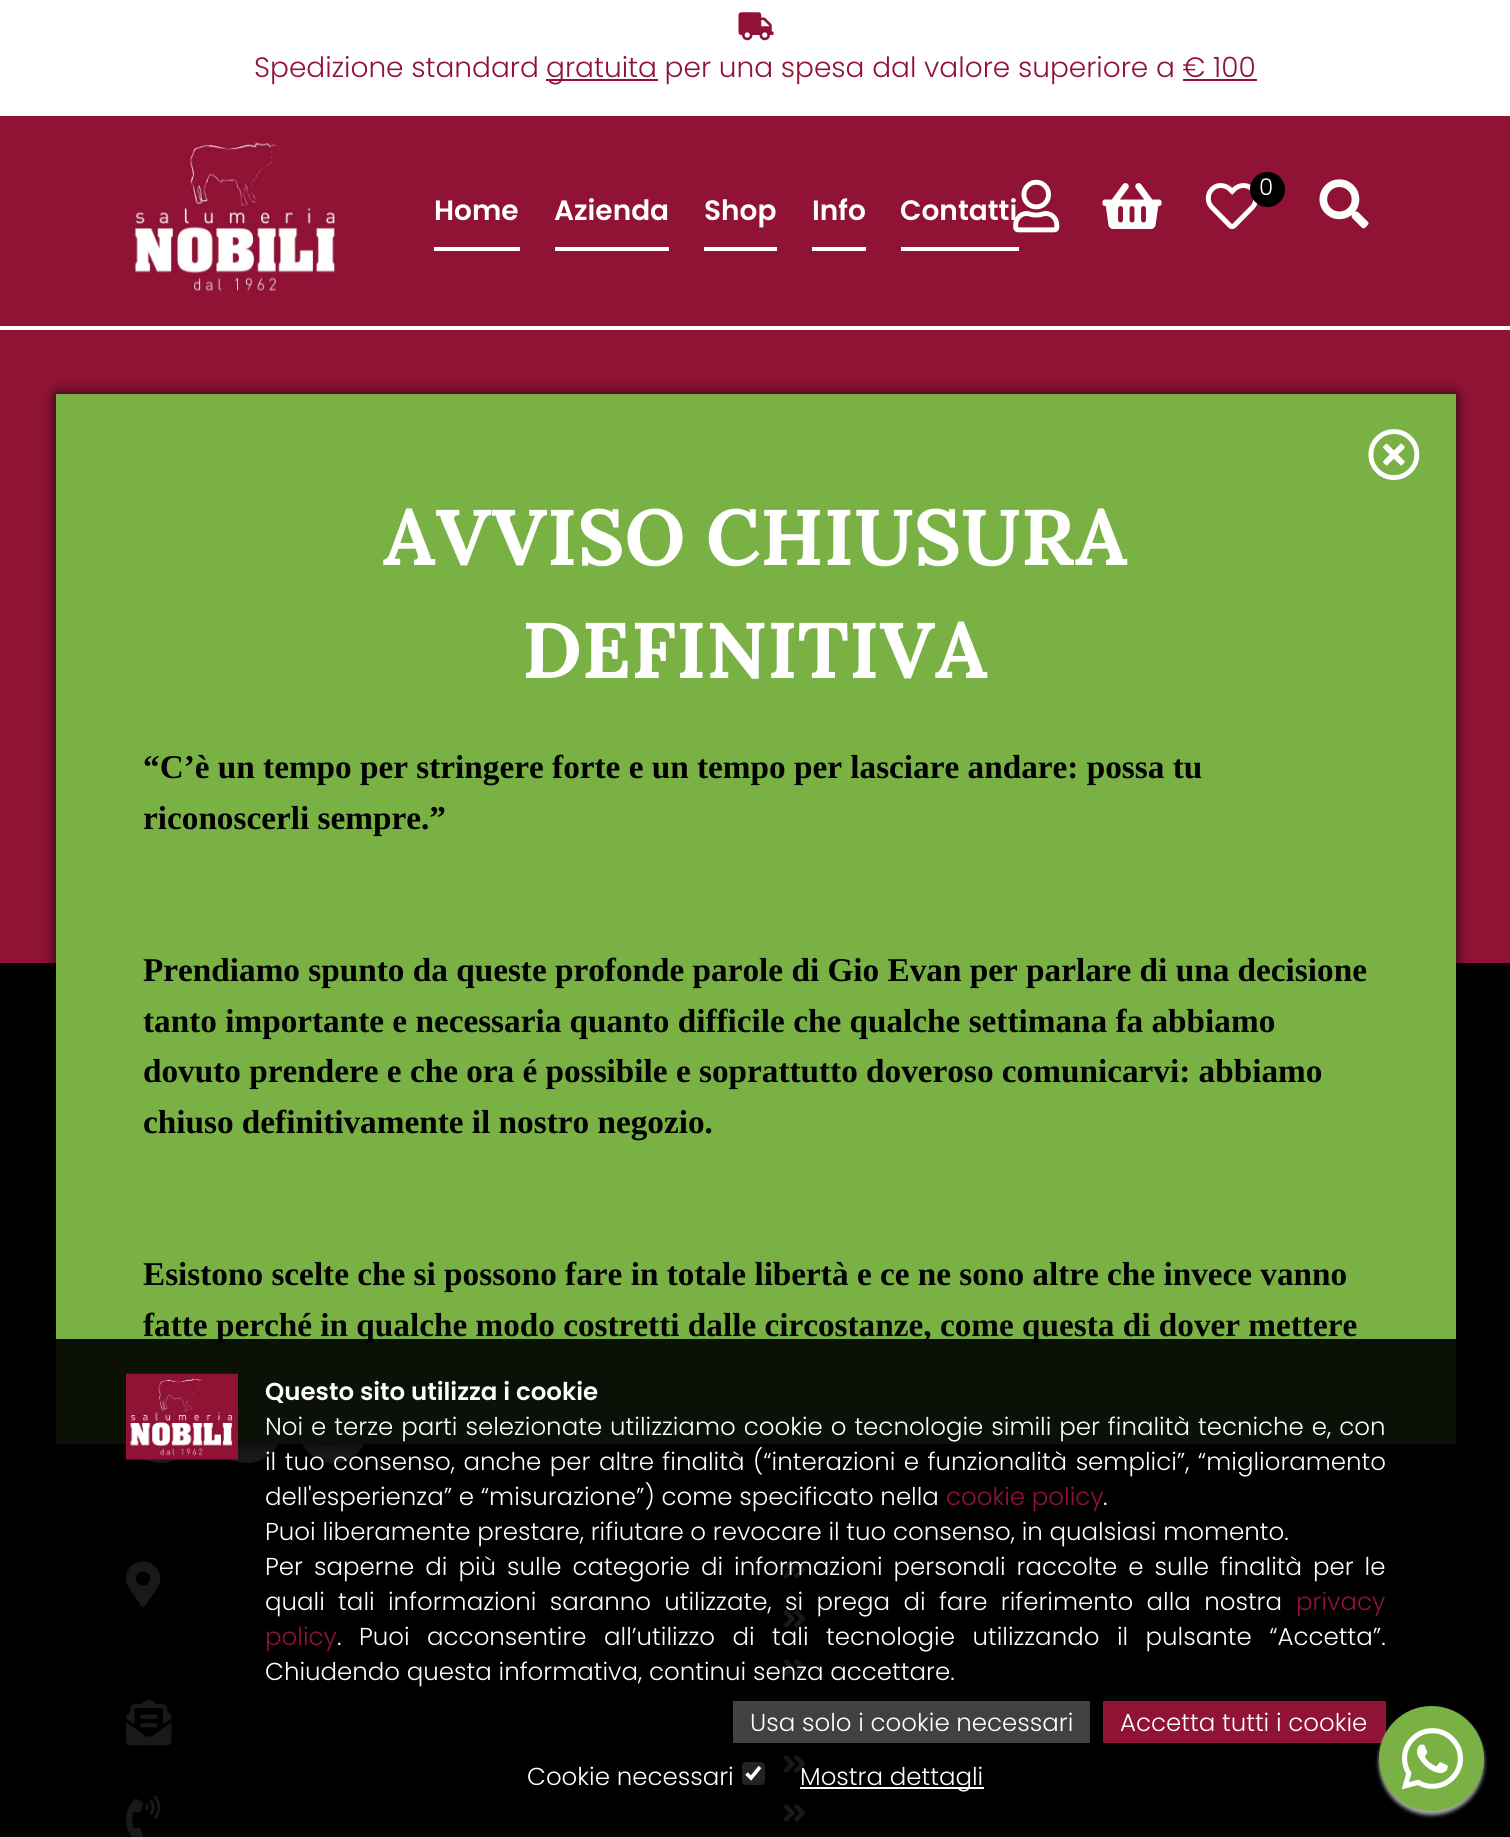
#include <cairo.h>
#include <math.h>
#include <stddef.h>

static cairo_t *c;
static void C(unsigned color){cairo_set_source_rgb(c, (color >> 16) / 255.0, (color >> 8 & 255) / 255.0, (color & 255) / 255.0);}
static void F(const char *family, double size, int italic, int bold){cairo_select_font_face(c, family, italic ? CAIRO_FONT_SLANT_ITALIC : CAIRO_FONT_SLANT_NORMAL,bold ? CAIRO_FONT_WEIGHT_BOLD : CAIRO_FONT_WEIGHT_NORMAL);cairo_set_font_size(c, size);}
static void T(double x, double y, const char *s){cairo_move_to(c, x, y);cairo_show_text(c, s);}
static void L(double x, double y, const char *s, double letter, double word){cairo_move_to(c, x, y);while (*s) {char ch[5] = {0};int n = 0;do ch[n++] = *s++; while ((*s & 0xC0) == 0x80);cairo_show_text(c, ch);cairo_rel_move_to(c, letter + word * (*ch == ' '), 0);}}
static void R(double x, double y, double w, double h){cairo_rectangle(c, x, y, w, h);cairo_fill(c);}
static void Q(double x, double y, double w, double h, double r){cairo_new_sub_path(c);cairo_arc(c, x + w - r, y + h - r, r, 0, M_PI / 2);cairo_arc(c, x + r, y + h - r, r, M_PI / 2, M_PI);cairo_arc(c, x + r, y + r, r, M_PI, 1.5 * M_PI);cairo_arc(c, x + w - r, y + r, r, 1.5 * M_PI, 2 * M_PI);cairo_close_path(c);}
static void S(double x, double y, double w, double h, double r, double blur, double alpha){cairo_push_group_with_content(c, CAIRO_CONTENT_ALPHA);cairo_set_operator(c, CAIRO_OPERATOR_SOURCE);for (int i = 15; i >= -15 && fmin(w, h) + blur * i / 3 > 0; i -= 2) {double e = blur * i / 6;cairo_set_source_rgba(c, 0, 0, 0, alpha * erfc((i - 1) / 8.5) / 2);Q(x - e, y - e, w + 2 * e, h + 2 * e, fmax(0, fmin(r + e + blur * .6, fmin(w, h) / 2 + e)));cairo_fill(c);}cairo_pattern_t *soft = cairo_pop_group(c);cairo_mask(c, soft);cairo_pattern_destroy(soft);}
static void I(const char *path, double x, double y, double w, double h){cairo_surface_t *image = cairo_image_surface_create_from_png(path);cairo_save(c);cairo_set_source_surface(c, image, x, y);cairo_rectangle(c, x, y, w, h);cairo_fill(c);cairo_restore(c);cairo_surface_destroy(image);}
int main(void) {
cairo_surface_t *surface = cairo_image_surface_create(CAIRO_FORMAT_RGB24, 1510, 1837);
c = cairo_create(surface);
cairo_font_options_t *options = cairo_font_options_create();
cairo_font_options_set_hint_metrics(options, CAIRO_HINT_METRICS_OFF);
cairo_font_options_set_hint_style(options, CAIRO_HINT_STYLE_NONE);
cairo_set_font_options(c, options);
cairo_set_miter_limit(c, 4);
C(0x901335);
cairo_paint(c);
C(0xffffff);
R(0,326,1510,4);
R(0,0,1510,116);
I("1.png",738,12,36,29);
F("Poppins Light",28,0,0);
C(0x901335);
T(254,77,"Spedizione standard");
R(546,79,112,2);
T(546,77,"gratuita per una spesa dal valore superiore a € 100");
R(1183,79,74,2);
F("Poppins SemiBold",28,0,0);
C(0xffffff);
T(900,220,"Contatti");
I("2.png",1013,179,47,54);
I("3.png",1102,183,60,46);
I("4.png",1205,183,53,46);
C(0x000000);
cairo_arc(c,1267.5,189.5,17.5,0,2 * M_PI);
cairo_fill(c);
F("Poppins Light",23,0,0);
C(0xffffff);
T(1259,195,"0");
I("5.png",1319,179,50,50);
C(0x000000);
R(0,963,1510,874);
C(0xffffff);
cairo_arc(c,161,1428,35,0,2 * M_PI);
cairo_fill(c);
cairo_arc(c,247,1428,35,0,2 * M_PI);
cairo_fill(c);
cairo_arc(c,333,1428,35,0,2 * M_PI);
cairo_fill(c);
I("8.png",324,1444,10,2);
C(0x000000);
S(56,394,1400,1050,0,7,.8);
C(0x79b145);
R(56,394,1400,1050);
I("6.png",1368,429,52,51);
F("Lora",78.75,0,1);
C(0xffffff);
T(383,565,"AVVISO CHIUSURA");
T(522,678,"DEFINITIVA");
F("Liberation Serif",33.25,0,1);
C(0x000000);
T(143,778,"“C’è un tempo per stringere forte e un tempo per lasciare andare: possa tu");
T(143,829,"riconoscerli sempre.”");
T(143,981,"Prendiamo spunto da queste profonde parole di Gio Evan per parlare di una decisione");
T(143,1032,"tanto importante e necessaria quanto difficile che qualche settimana fa abbiamo");
T(143,1082,"dovuto prendere e che ora é possibile e soprattutto doveroso comunicarvi: abbiamo");
T(143,1133,"chiuso definitivamente il nostro negozio.");
T(143,1285,"Esistono scelte che si possono fare in totale libertà e ce ne sono altre che invece vanno");
T(143,1336,"fatte perché in qualche modo costretti dalle circostanze, come questa di dover mettere");
I("7.png",133,142,204,150);
C(0xffffff);
R(434,247,86,4);
F("Poppins SemiBold",28,0,0);
T(434,220,"Home");
R(555,247,114,4);
T(554,220,"Azienda");
R(704,247,73,4);
T(704,220,"Shop");
R(812,247,54,4);
T(812,220,"Info");
R(901,247,118,4);
I("9.png",126,1561,35,46);
I("10.png",126,1699,46,47);
I("11.png",126,1795,35,42);
I("12.png",783,1561,23,18);
I("12.png",783,1610,23,18);
I("12.png",783,1659,23,18);
I("13.png",783,1755,23,18);
I("13.png",783,1804,23,18);
cairo_set_source_rgba(c,0,0,0,0.9);
R(56,1339,1400,498);
I("14.png",125,1373,113,87);
F("Poppins SemiBold",24.5,0,0);
C(0xffffff);
T(265,1400,"Questo sito utilizza i cookie");
F("Poppins Light",24.5,0,0);
L(265,1435,"Noi e terze parti selezionate utilizziamo cookie o tecnologie simili per finalità tecniche e, con",0,1.25);
L(265,1470,"il tuo consenso, anche per altre finalità (“interazioni e funzionalità semplici”, “miglioramento",0,1.75);
T(265,1505,"dell'esperienza” e “misurazione”) come specificato nella");
C(0x901335);
T(946,1505,"cookie policy");
C(0xffffff);
T(1103,1505,".");
T(265,1540,"Puoi liberamente prestare, rifiutare o revocare il tuo consenso, in qualsiasi momento.");
L(265,1575,"Per saperne di più sulle categorie di informazioni personali raccolte e sulle finalità per le",0,4.25);
L(265,1610,"quali tali informazioni saranno utilizzate, si prega di fare riferimento alla nostra",0,6.6);
C(0x901335);
T(1296,1610,"privacy");
T(265,1645,"policy");
C(0xffffff);
L(337,1645,". Puoi acconsentire all’utilizzo di tali tecnologie utilizzando il pulsante “Accetta”.",0,10.75);
T(265,1680,"Chiudendo questa informativa, continui senza accettare.");
C(0x414141);
R(733,1701,357,42);
C(0xffffff);
T(750,1731,"Usa solo i cookie necessari");
C(0x901335);
R(1103,1701,283,42);
C(0xffffff);
T(1120,1731,"Accetta tutti i cookie");
T(527,1785,"Cookie necessari");
C(0x232323);
Q(742,1762,23,23,4);
cairo_fill(c);
cairo_new_path(c);
cairo_move_to(c,746.5,1773.5);
cairo_line_to(c,751,1778);
cairo_line_to(c,760,1767);
C(0xffffff);
cairo_set_line_width(c,3.6);
cairo_stroke(c);
R(800,1787,184,2);
T(800,1785,"Mostra dettagli");
C(0xaaaaaa);
S(1379,1710,105,105,52.5,2,1);
C(0x79b145);
cairo_arc(c,1431.5,1758.5,52.5,0,2 * M_PI);
cairo_fill(c);
I("15.png",1401,1728,62,62);
cairo_surface_write_to_png(surface, "o.png");
cairo_font_options_destroy(options);
cairo_destroy(c);
cairo_surface_destroy(surface);
return 0;
}
